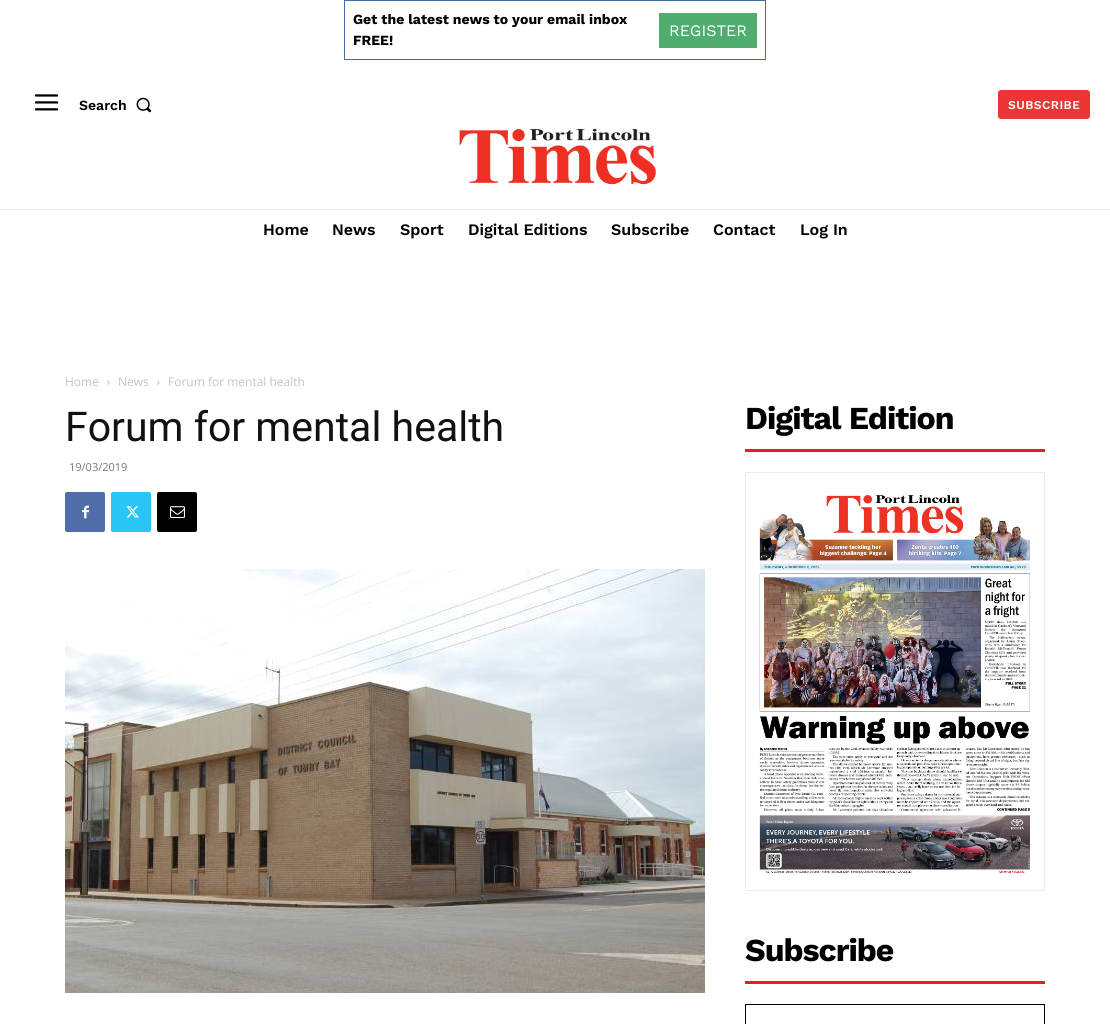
#include <cairo.h>
#include <math.h>
#include <stddef.h>

static cairo_t *c;
static void C(unsigned color){cairo_set_source_rgb(c, (color >> 16) / 255.0, (color >> 8 & 255) / 255.0, (color & 255) / 255.0);}
static void F(const char *family, double size, int italic, int bold){cairo_select_font_face(c, family, italic ? CAIRO_FONT_SLANT_ITALIC : CAIRO_FONT_SLANT_NORMAL,bold ? CAIRO_FONT_WEIGHT_BOLD : CAIRO_FONT_WEIGHT_NORMAL);cairo_set_font_size(c, size);}
static void T(double x, double y, const char *s){cairo_move_to(c, x, y);cairo_show_text(c, s);}
static void L(double x, double y, const char *s, double letter, double word){cairo_move_to(c, x, y);while (*s) {char ch[5] = {0};int n = 0;do ch[n++] = *s++; while ((*s & 0xC0) == 0x80);cairo_show_text(c, ch);cairo_rel_move_to(c, letter + word * (*ch == ' '), 0);}}
static void R(double x, double y, double w, double h){cairo_rectangle(c, x, y, w, h);cairo_fill(c);}
static void Q(double x, double y, double w, double h, double r){cairo_new_sub_path(c);cairo_arc(c, x + w - r, y + h - r, r, 0, M_PI / 2);cairo_arc(c, x + r, y + h - r, r, M_PI / 2, M_PI);cairo_arc(c, x + r, y + r, r, M_PI, 1.5 * M_PI);cairo_arc(c, x + w - r, y + r, r, 1.5 * M_PI, 2 * M_PI);cairo_close_path(c);}
static void I(const char *path, double x, double y, double w, double h){cairo_surface_t *image = cairo_image_surface_create_from_png(path);cairo_save(c);cairo_set_source_surface(c, image, x, y);cairo_rectangle(c, x, y, w, h);cairo_fill(c);cairo_restore(c);cairo_surface_destroy(image);}
int main(void) {
cairo_surface_t *surface = cairo_image_surface_create(CAIRO_FORMAT_RGB24, 1110, 1024);
c = cairo_create(surface);
cairo_font_options_t *options = cairo_font_options_create();
cairo_font_options_set_hint_metrics(options, CAIRO_HINT_METRICS_OFF);
cairo_font_options_set_hint_style(options, CAIRO_HINT_STYLE_NONE);
cairo_set_font_options(c, options);
cairo_set_miter_limit(c, 4);
C(0xffffff);
cairo_paint(c);
cairo_rectangle(c,344.5,.5,421,59);
C(0x3e6fa7);
cairo_set_line_width(c,1);
cairo_stroke(c);
F("Work Sans",14,0,1);
C(0x000000);
T(353,24,"Get the latest news to your email inbox");
T(353,45,"FREE!");
C(0x50ad6f);
R(659,13,98,35);
F("Work Sans",16,0,0);
C(0xffffff);
T(669,36,"REGISTER");
I("1.png",459,128,197,57);
I("2.png",35,94,24,17);
F("Work Sans SemiBold",14,0,0);
C(0x000000);
T(79,110,"Search");
I("3.png",136,97,16,16);
C(0xec3535);
Q(998,90,92,29,3);
cairo_fill(c);
F("Work Sans SemiBold",12,0,0);
C(0xffffff);
L(1008,109,"SUBSCRIBE",.5,0);
C(0xeaeaea);
R(0,209,1110,1);
F("Work Sans SemiBold",16,0,0);
C(0x000000);
T(263,235,"Home");
T(332,235,"News");
T(400,235,"Sport");
T(468,235,"Digital Editions");
T(611,235,"Subscribe");
T(713,235,"Contact");
T(800,235,"Log In");
F("Open Sans",12,0,0);
C(0xc3c3c3);
T(65,386,"Home");
I("4.png",107,380,3,5);
T(118,386,"News");
I("4.png",157,380,3,5);
T(168,386,"Forum for mental health");
F("Roboto",41,0,0);
C(0x111111);
T(65,441,"Forum for mental health");
F("Open Sans",11,0,0);
C(0x767676);
T(69,471,"19/03/2019");
C(0x516eab);
Q(65,492,40,40,2);
cairo_fill(c);
I("5.png",82,505,7,14);
C(0x29c5f6);
Q(111,492,40,40,2);
cairo_fill(c);
I("6.png",126,506,13,12);
C(0x000000);
Q(157,492,40,40,2);
cairo_fill(c);
I("7.png",170,506,15,12);
I("8.png",65,569,640,424);
C(0xe71b2a);
R(745,449,300,3);
F("Work Sans",32,0,1);
C(0x000000);
L(745,429,"Digital Edition",-1,0);
cairo_rectangle(c,745.5,472.5,299,418);
C(0xedecec);
cairo_stroke(c);
I("9.png",759,495,271,379);
C(0xe71b2a);
R(745,981,300,3);
C(0x000000);
L(745,961,"Subscribe",-1,0);
cairo_rectangle(c,745.5,1004.5,299,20);
cairo_stroke(c);
cairo_surface_write_to_png(surface, "o.png");
cairo_font_options_destroy(options);
cairo_destroy(c);
cairo_surface_destroy(surface);
return 0;
}
